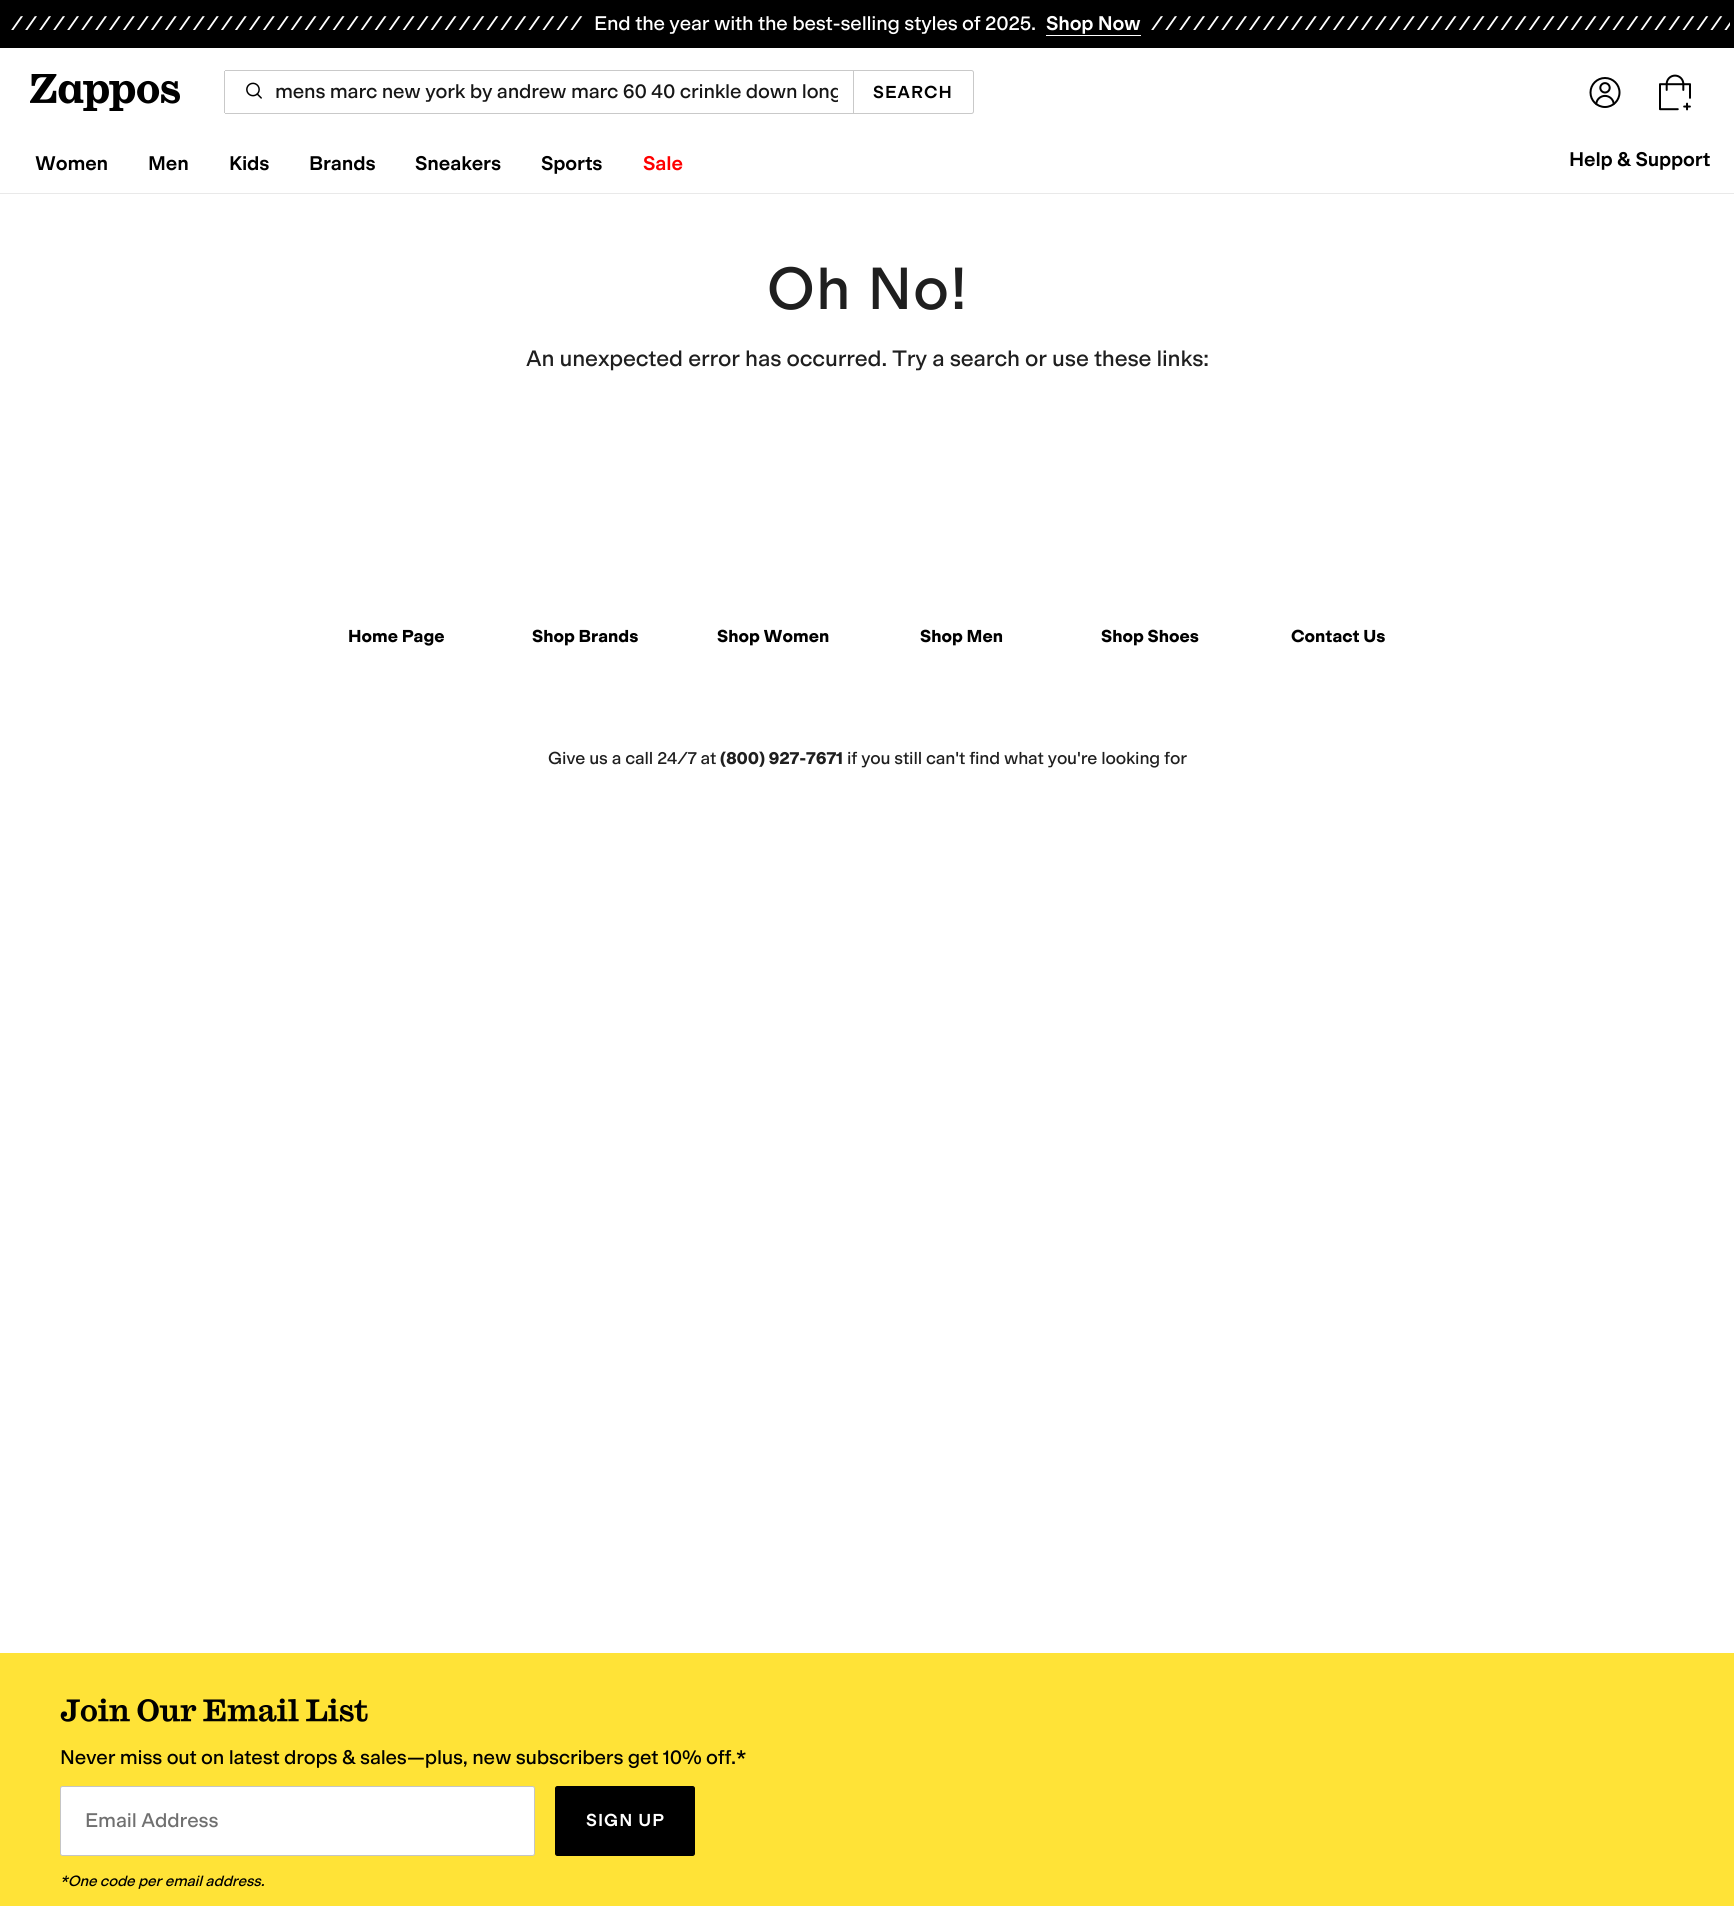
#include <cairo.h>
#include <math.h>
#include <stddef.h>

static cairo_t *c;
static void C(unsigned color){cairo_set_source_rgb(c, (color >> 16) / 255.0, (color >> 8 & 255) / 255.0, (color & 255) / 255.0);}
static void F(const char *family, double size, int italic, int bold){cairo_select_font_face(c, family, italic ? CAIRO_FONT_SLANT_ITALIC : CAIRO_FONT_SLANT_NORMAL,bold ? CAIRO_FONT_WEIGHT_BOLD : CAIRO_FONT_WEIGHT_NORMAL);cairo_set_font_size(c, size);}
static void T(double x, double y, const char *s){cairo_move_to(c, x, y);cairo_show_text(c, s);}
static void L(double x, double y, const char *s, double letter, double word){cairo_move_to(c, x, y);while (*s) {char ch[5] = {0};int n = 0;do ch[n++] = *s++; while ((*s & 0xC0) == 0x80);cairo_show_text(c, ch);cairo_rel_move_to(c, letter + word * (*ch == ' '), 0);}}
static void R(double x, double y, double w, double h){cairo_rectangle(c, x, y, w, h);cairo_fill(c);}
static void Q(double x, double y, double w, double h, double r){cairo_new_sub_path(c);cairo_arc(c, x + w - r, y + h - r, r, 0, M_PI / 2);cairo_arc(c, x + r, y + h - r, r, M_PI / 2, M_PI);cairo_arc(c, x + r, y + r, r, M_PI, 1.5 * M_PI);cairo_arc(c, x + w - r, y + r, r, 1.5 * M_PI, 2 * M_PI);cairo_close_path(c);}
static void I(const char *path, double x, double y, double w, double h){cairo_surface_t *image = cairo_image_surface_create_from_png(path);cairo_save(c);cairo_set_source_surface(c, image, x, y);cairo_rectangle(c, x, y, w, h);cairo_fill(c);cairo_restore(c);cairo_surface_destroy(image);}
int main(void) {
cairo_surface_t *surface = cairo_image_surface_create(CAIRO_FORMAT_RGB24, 1734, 1906);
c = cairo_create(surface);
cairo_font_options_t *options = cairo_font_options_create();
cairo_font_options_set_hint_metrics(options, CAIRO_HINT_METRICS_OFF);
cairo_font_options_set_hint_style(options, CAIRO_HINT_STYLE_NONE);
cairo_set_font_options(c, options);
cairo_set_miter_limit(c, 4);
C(0xffffff);
cairo_paint(c);
C(0x000000);
R(0,0,1734,48);
F("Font",20,0,0);
C(0xffffff);
L(11,30,"/////////////////////////////////////////",1.8,0);
L(594,30,"End the year with the best-selling styles of 2025.",-.2,0);
F("Font Medium",20,0,0);
L(1046,30,"Shop Now",-.2,0);
R(1046,35,95,1);
cairo_save(c);
cairo_rectangle(c,1151,10,579,28);
cairo_clip(c);
F("Font",20,0,0);
L(1151,30,"//////////////////////////////////////////",1.8,0);
cairo_restore(c);
C(0xe9e9e9);
R(0,193,1734,1);
I("1.png",30,74,150,37);
I("2.png",246,82,16,17);
C(0xc9c9c9);
R(225,70,628,1);
R(225,113,628,1);
R(224,71,1,42);
cairo_save(c);
cairo_rectangle(c,275,79,563,26);
cairo_clip(c);
F("Font",20,0,0);
C(0x161616);
L(275,98,"mens marc new york by andrew marc 60 40 crinkle down long",-.2,0);
cairo_restore(c);
cairo_new_path(c);
cairo_move_to(c,853.5,70.5);
cairo_line_to(c,971.5,70.5);
cairo_curve_to(c,972.5,70.5,973.5,71.5,973.5,72.5);
cairo_line_to(c,973.5,111.5);
cairo_curve_to(c,973.5,112.5,972.5,113.5,971.5,113.5);
cairo_line_to(c,853.5,113.5);
cairo_close_path(c);
cairo_set_line_width(c,1);
cairo_stroke(c);
F("Font Medium",17.5,0,0);
C(0x000000);
L(873,98,"SEARCH",1,0);
I("3.png",1589,77,32,31);
I("4.png",1659,74,32,37);
F("Font Medium",20,0,0);
L(35,170,"Women",-.15,0);
L(148,170,"Men",-.15,0);
L(229,170,"Kids",-.15,0);
L(309,170,"Brands",-.15,0);
L(415,170,"Sneakers",-.15,0);
L(541,170,"Sports",-.15,0);
C(0xff0000);
L(643,170,"Sale",-.15,0);
C(0x000000);
L(1569,166,"Help & Support",-.15,0);
F("Font",60,0,0);
C(0x1f1f1f);
L(767,309,"Oh No!",1.25,0);
F("Font",22.5,0,0);
L(526,366,"An unexpected error has occurred. Try a search or use these links:",-.15,0);
F("Font",17.5,0,1);
C(0x000000);
T(348,642,"Home Page");
T(532,642,"Shop Brands");
T(717,642,"Shop Women");
T(920,642,"Shop Men");
T(1101,642,"Shop Shoes");
T(1291,642,"Contact Us");
F("Font",17.5,0,0);
C(0x1f1f1f);
L(548,764,"Give us a call 24/7 at",-.15,0);
F("Font",17.5,0,1);
L(720,764,"(800) 927-7671",-.15,0);
F("Font",17.5,0,0);
L(847,764,"if you still can't find what you're looking for",-.15,0);
C(0xffe337);
R(0,1653,1734,253);
I("5.png",60,1698,308,24);
F("Font",20,0,0);
C(0x000000);
L(60,1764,"Never miss out on latest drops & sales—plus, new subscribers get 10% off.*",-.2,0);
C(0xffffff);
Q(60.5,1786.5,474,69,2);
cairo_fill_preserve(c);
C(0xc5c5c5);
cairo_stroke(c);
C(0x707070);
L(85,1827,"Email Address",-.15,0);
C(0x000000);
Q(555.5,1786.5,139,69,2);
cairo_fill_preserve(c);
cairo_stroke(c);
F("Font Medium",17.5,0,0);
C(0xffffff);
L(586,1826,"SIGN UP",1,0);
F("Font",15,1,0);
C(0x000000);
L(60,1886,"*One code per email address.",-.15,0);
cairo_surface_write_to_png(surface, "o.png");
cairo_font_options_destroy(options);
cairo_destroy(c);
cairo_surface_destroy(surface);
return 0;
}
